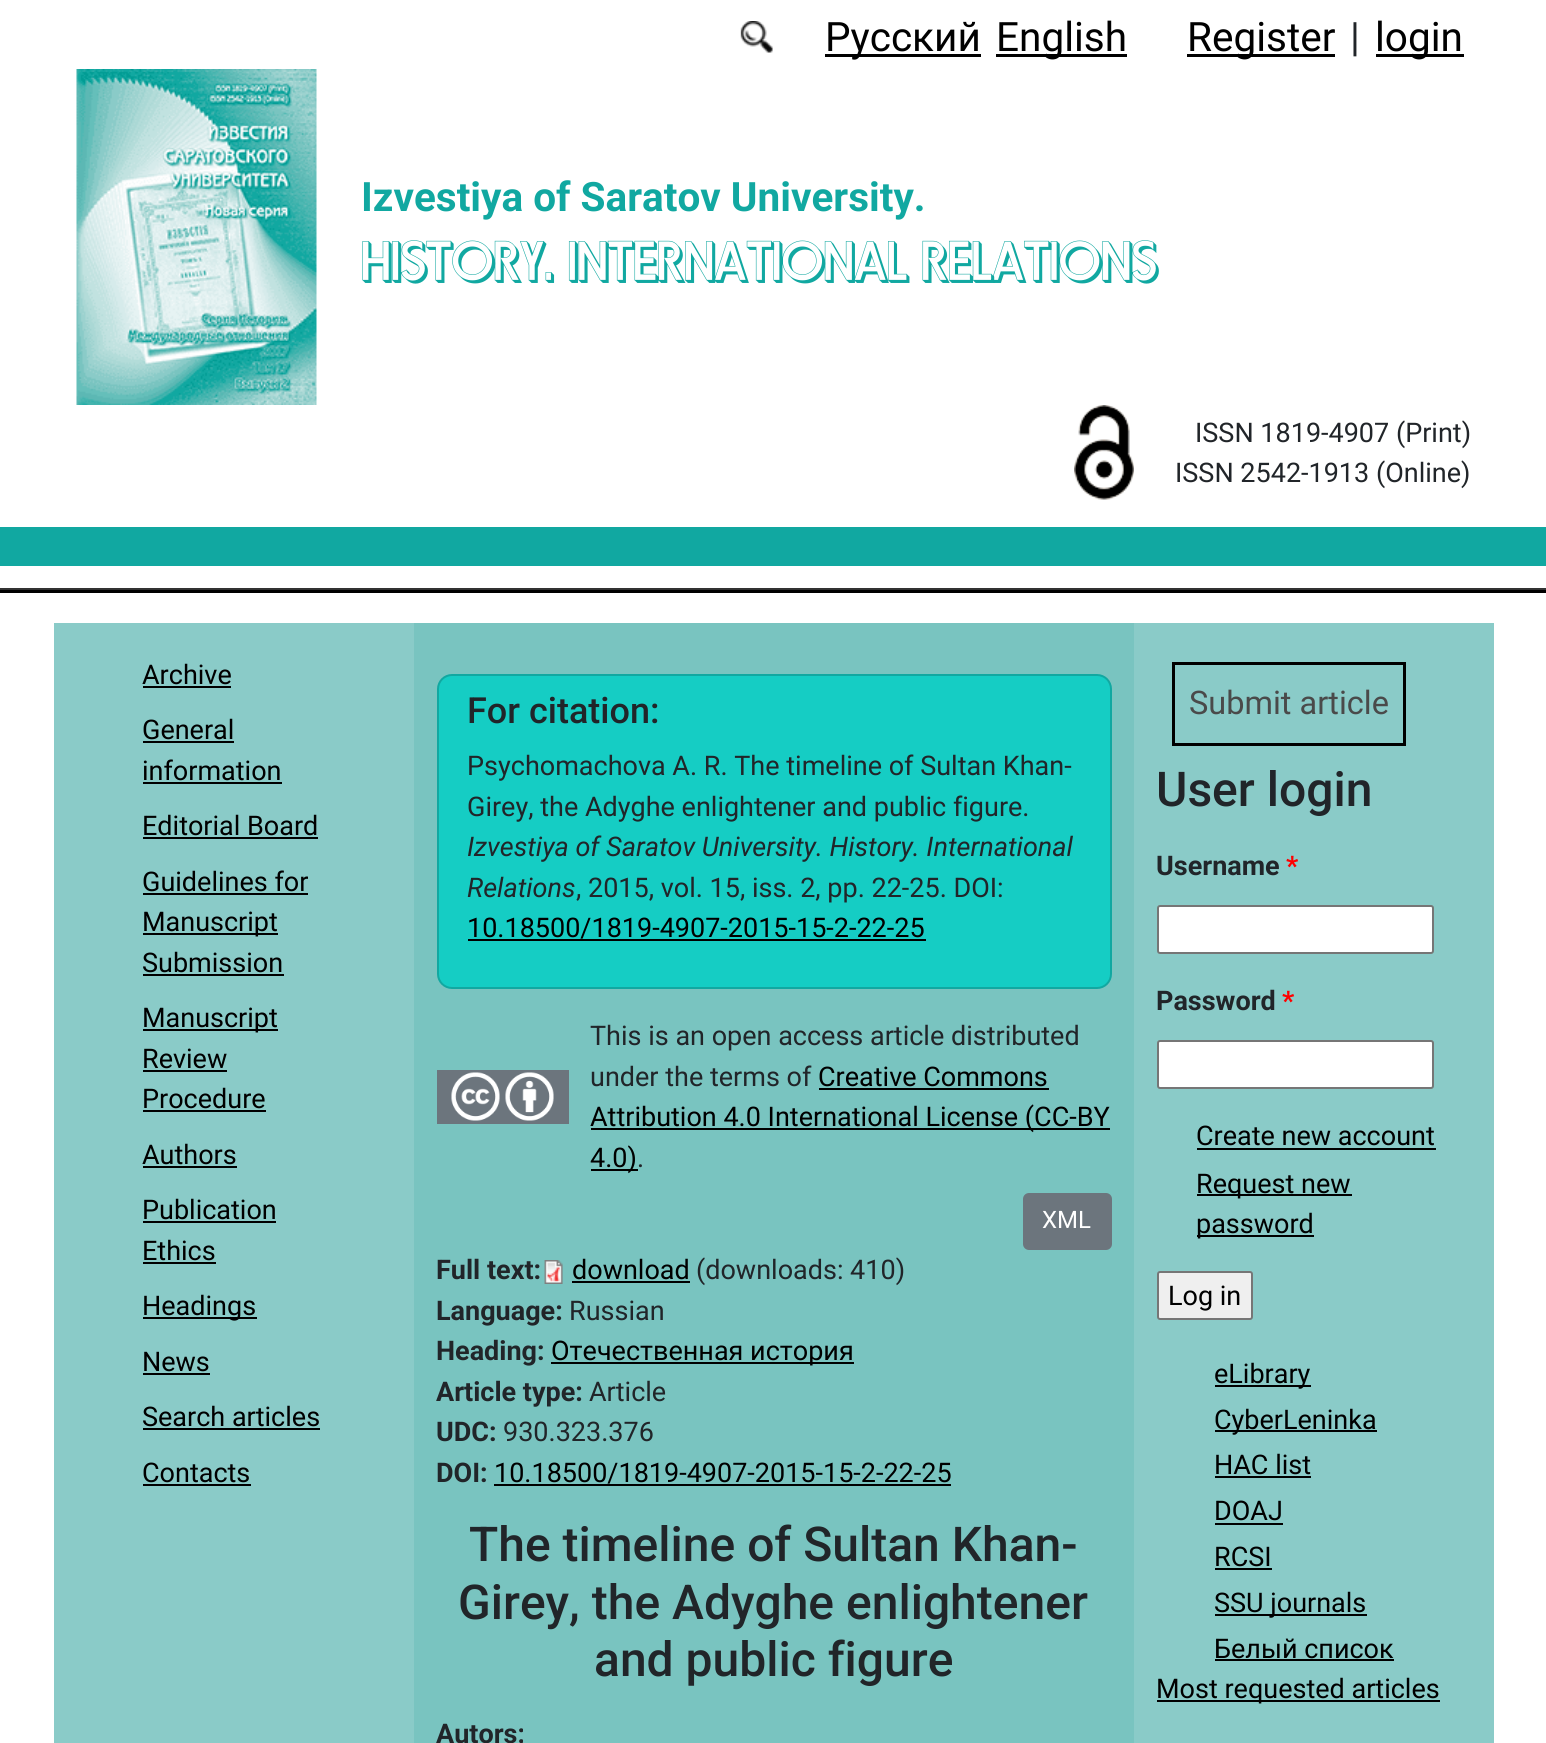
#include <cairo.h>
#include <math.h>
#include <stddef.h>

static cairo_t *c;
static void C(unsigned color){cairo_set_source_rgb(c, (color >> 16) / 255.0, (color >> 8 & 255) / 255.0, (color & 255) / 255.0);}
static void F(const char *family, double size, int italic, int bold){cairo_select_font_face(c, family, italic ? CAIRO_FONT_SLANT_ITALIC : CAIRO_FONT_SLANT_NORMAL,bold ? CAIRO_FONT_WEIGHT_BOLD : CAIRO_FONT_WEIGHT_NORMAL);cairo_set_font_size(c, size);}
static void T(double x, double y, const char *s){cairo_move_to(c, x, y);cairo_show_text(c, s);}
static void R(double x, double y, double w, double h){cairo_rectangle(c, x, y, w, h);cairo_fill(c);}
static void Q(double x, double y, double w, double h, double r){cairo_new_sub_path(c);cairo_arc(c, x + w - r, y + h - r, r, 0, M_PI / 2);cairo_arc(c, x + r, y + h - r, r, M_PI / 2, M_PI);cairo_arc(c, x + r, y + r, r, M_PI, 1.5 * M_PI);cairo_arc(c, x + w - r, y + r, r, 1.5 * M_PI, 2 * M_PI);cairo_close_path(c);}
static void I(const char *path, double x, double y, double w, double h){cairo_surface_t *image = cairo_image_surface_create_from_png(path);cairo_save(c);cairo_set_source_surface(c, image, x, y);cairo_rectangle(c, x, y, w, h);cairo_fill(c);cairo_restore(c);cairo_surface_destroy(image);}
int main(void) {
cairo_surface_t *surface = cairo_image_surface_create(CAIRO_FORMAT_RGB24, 1546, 1743);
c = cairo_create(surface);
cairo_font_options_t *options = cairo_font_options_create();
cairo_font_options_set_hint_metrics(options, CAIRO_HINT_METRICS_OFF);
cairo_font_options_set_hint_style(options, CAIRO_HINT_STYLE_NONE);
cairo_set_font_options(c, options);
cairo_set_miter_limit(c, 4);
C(0xffffff);
cairo_paint(c);
I("1.png",740,21,33,32);
C(0x000000);
R(825,54,156,3);
F("Roboto",40.5,0,0);
T(825,51,"Русский");
R(996,54,131,3);
T(996,51,"English");
R(1187,54,148,3);
T(1187,51,"Register");
C(0x212529);
T(1350,51,"|");
C(0x000000);
R(1376,54,88,3);
T(1375,51,"login");
I("2.png",76,69,241,336);
F("Roboto",40.5,0,1);
C(0x11a8a1);
T(361,211,"Izvestiya of Saratov University.");
F("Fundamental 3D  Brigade",54,0,0);
T(361,280,"HISTORY. INTERNATIONAL RELATIONS");
I("3.png",1074,405,60,95);
F("Roboto",27,0,0);
C(0x212529);
T(1195,442,"ISSN 1819-4907 (Print)");
T(1175,482,"ISSN 2542-1913 (Online)");
C(0x11a8a1);
R(0,527,1546,39);
C(0x333333);
R(0,588,1546,2);
C(0x000000);
R(0,590,1546,3);
C(0x8acbc8);
R(54,623,360,1120);
C(0x000000);
T(142,684,"Archive");
R(143,686,88,2);
T(142,739,"General");
R(143,741,91,2);
T(142,780,"information");
R(143,782,139,2);
T(142,835,"Editorial Board");
R(143,837,175,2);
T(142,891,"Guidelines for");
R(143,893,165,2);
R(143,933,135,2);
T(142,931,"Manuscript");
T(142,972,"Submission");
R(143,974,141,2);
R(143,1029,135,2);
T(142,1027,"Manuscript");
T(142,1068,"Review");
R(143,1070,84,2);
T(142,1108,"Procedure");
R(143,1110,123,2);
T(142,1164,"Authors");
R(143,1166,94,2);
T(142,1219,"Publication");
R(143,1221,133,2);
T(142,1260,"Ethics");
R(143,1262,73,2);
R(143,1317,114,2);
T(142,1315,"Headings");
T(142,1371,"News");
R(143,1373,67,2);
T(142,1426,"Search articles");
R(143,1428,177,2);
T(142,1482,"Contacts");
R(143,1484,108,2);
C(0x79c4c0);
R(414,623,720,1120);
C(0x15cdc4);
Q(438,675,673,313,14);
cairo_fill_preserve(c);
C(0x11a8a1);
cairo_stroke(c);
F("Roboto Medium",36,0,0);
C(0x212529);
T(467,723,"For citation:");
F("Roboto",27,0,0);
T(467,775,"Psychomachova A. R. The timeline of Sultan Khan-");
T(467,816,"Girey, the Adyghe enlightener and public figure.");
F("Roboto",27,1,0);
T(467,856,"Izvestiya of Saratov University. History. International");
T(467,897,"Relations");
F("Roboto",27,0,0);
T(576,897,", 2015, vol. 15, iss. 2, pp. 22-25. DOI:");
C(0x000000);
T(467,937,"10.18500/1819-4907-2015-15-2-22-25");
R(468,939,458,2);
C(0x6c757d);
R(437,1070,132,54);
I("4.png",451,1072,49,49);
I("5.png",505,1072,49,49);
C(0x212529);
T(590,1045,"This is an open access article distributed");
T(590,1086,"under the terms of");
C(0x000000);
T(818,1086,"Creative Commons");
R(819,1088,230,2);
R(591,1128,519,2);
T(590,1126,"Attribution 4.0 International License (CC-BY");
R(591,1169,47,2);
T(590,1167,"4.0)");
C(0x212529);
T(637,1167,".");
C(0x6c757d);
Q(1024,1194,87,55,5);
cairo_fill_preserve(c);
cairo_stroke(c);
F("Roboto",24,0,0);
C(0xffffff);
T(1042,1228,"XML");
F("Roboto",27,0,1);
C(0x212529);
T(436,1279,"Full text:");
I("6.png",544,1260,19,24);
F("Roboto",27,0,0);
C(0x000000);
T(572,1279,"download");
R(572,1281,118,2);
C(0x212529);
T(696,1279,"(downloads: 410)");
F("Roboto",27,0,1);
T(436,1320,"Language:");
F("Roboto",27,0,0);
T(569,1320,"Russian");
F("Roboto",27,0,1);
T(436,1360,"Heading:");
C(0x000000);
R(551,1362,303,2);
F("Roboto",27,0,0);
T(551,1360,"Отечественная история");
F("Roboto",27,0,1);
C(0x212529);
T(436,1401,"Article type:");
F("Roboto",27,0,0);
T(589,1401,"Article");
F("Roboto",27,0,1);
T(436,1441,"UDC:");
F("Roboto",27,0,0);
T(503,1441,"930.323.376");
F("Roboto",27,0,1);
T(436,1482,"DOI:");
F("Roboto",27,0,0);
C(0x000000);
T(494,1482,"10.18500/1819-4907-2015-15-2-22-25");
R(494,1484,457,2);
F("Roboto Medium",48,0,0);
C(0x212529);
T(469,1561,"The timeline of Sultan Khan-");
T(458,1619,"Girey, the Adyghe enlightener");
T(594,1676,"and public figure");
F("Roboto",27,0,1);
T(436,1743,"Autors:");
C(0x8acbc8);
R(1134,623,360,1120);
cairo_rectangle(c,1173.5,663.5,231,81);
C(0x000000);
cairo_set_line_width(c,3);
cairo_stroke(c);
F("Roboto",32.5,0,0);
C(0x4a4a4a);
T(1189,714,"Submit article");
F("Roboto Medium",48,0,0);
C(0x212529);
T(1156,806,"User login");
F("Roboto",27,0,1);
T(1156,875,"Username");
C(0xff0000);
T(1286,875,"*");
C(0xffffff);
Q(1158,906,275,47,2);
cairo_fill_preserve(c);
C(0x767676);
cairo_set_line_width(c,2);
cairo_stroke(c);
C(0x212529);
T(1156,1010,"Password");
C(0xff0000);
T(1282,1010,"*");
C(0xffffff);
Q(1158,1041,275,47,2);
cairo_fill_preserve(c);
C(0x767676);
cairo_stroke(c);
F("Roboto",27,0,0);
C(0x000000);
T(1196,1145,"Create new account");
R(1197,1148,239,2);
R(1197,1194,155,2);
T(1196,1193,"Request new");
R(1197,1235,117,2);
T(1196,1233,"password");
C(0xefefef);
Q(1158,1272,94,47,2);
cairo_fill_preserve(c);
C(0x767676);
cairo_stroke(c);
C(0x000000);
T(1168,1305,"Log in");
R(1215,1385,96,2);
T(1214,1383,"eLibrary");
R(1215,1430,162,2);
T(1214,1429,"CyberLeninka");
T(1214,1474,"HAC list");
R(1215,1476,96,2);
T(1214,1520,"DOAJ");
R(1215,1523,68,2);
T(1214,1566,"RCSI");
R(1215,1568,57,2);
R(1215,1614,152,2);
T(1214,1612,"SSU journals");
T(1214,1658,"Белый список");
R(1215,1659,179,2);
R(1157,1700,283,2);
T(1156,1698,"Most requested articles");
cairo_surface_write_to_png(surface, "o.png");
cairo_font_options_destroy(options);
cairo_destroy(c);
cairo_surface_destroy(surface);
return 0;
}
